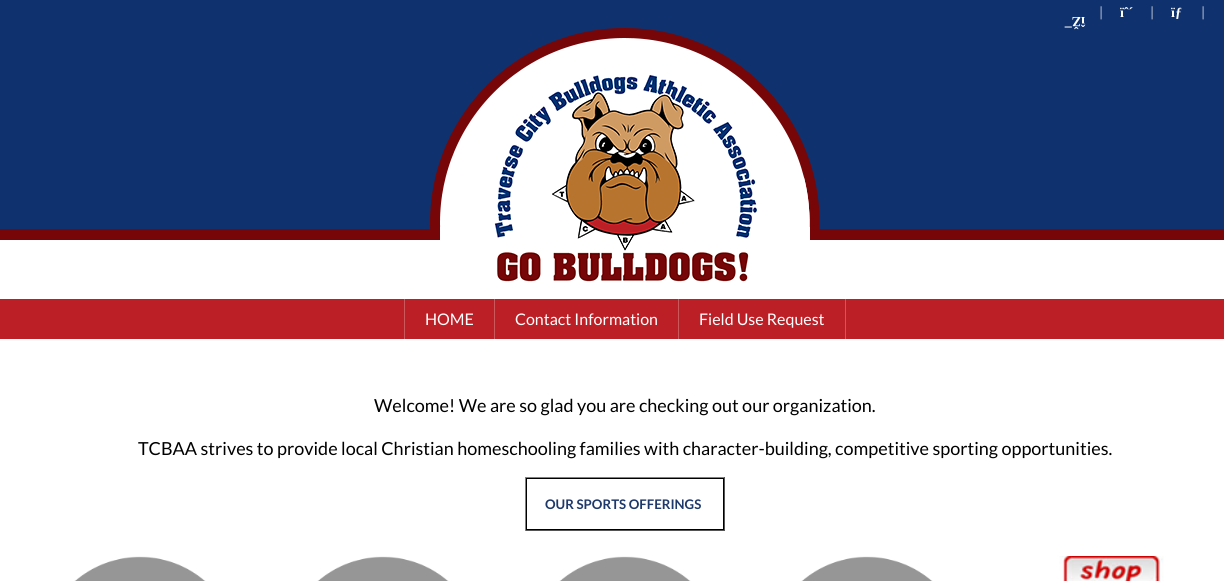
#include <cairo.h>
#include <math.h>
#include <stddef.h>

static cairo_t *c;
static void C(unsigned color){cairo_set_source_rgb(c, (color >> 16) / 255.0, (color >> 8 & 255) / 255.0, (color & 255) / 255.0);}
static void F(const char *family, double size, int italic, int bold){cairo_select_font_face(c, family, italic ? CAIRO_FONT_SLANT_ITALIC : CAIRO_FONT_SLANT_NORMAL,bold ? CAIRO_FONT_WEIGHT_BOLD : CAIRO_FONT_WEIGHT_NORMAL);cairo_set_font_size(c, size);}
static void T(double x, double y, const char *s){cairo_move_to(c, x, y);cairo_show_text(c, s);}
static void R(double x, double y, double w, double h){cairo_rectangle(c, x, y, w, h);cairo_fill(c);}
static void I(const char *path, double x, double y, double w, double h){cairo_surface_t *image = cairo_image_surface_create_from_png(path);cairo_save(c);cairo_set_source_surface(c, image, x, y);cairo_rectangle(c, x, y, w, h);cairo_fill(c);cairo_restore(c);cairo_surface_destroy(image);}
int main(void) {
cairo_surface_t *surface = cairo_image_surface_create(CAIRO_FORMAT_RGB24, 1224, 581);
c = cairo_create(surface);
cairo_font_options_t *options = cairo_font_options_create();
cairo_font_options_set_hint_metrics(options, CAIRO_HINT_METRICS_OFF);
cairo_font_options_set_hint_style(options, CAIRO_HINT_STYLE_NONE);
cairo_set_font_options(c, options);
cairo_set_miter_limit(c, 4);
C(0xffffff);
cairo_paint(c);
I("1.png",0,0,1224,231);
F("Lato",14,0,0);
C(0xb7c1d3);
T(1099,17,"|");
F("Liberation Serif",14,0,1);
C(0xffffff);
T(1120,17,"ïˆ´");
F("Lato",14,0,0);
C(0xb7c1d3);
T(1150,17,"|");
F("Liberation Serif",14,0,1);
C(0xffffff);
T(1171,17,"ïƒ");
F("Lato",14,0,0);
C(0xb7c1d3);
T(1201,17,"|");
I("2.png",0,28,1224,271);
F("Liberation Serif",14,0,1);
C(0xffffff);
cairo_save(c);
cairo_translate(c,1085,17);
cairo_rotate(c,180 * M_PI / 180);
T(0,0,"îŽ¯");
cairo_restore(c);
C(0xbc2026);
R(0,299,1224,40);
C(0xcd585c);
R(404,299,1,40);
R(494,299,1,40);
F("Lato",16,0,0);
C(0xffffff);
T(425,325,"HOME");
C(0xcd585c);
R(678,299,1,40);
C(0xffffff);
T(515,325,"Contact Information");
C(0xcd585c);
R(845,299,1,40);
C(0xffffff);
T(699,325,"Field Use Request");
F("Lato",18,0,0);
C(0x000000);
T(374,412,"Welcome! We are so glad you are checking out our organization.");
T(138,455,"TCBAA strives to provide local Christian homeschooling families with character-building, competitive sporting opportunities.");
C(0x808080);
R(525,477,200,1);
C(0x555555);
R(724,477,1,54);
R(525,530,200,1);
C(0x808080);
R(525,477,1,54);
cairo_rectangle(c,526.5,478.5,197,51);
C(0x000000);
cairo_set_line_width(c,1);
cairo_stroke(c);
F("Lato",13.25,0,1);
C(0x1d396a);
T(545,509,"OUR SPORTS OFFERINGS");
I("3.png",74,556,132,25);
I("4.png",317,556,132,25);
I("4.png",559,556,132,25);
I("4.png",801,556,132,25);
I("5.png",1059,556,105,25);
cairo_surface_write_to_png(surface, "o.png");
cairo_font_options_destroy(options);
cairo_destroy(c);
cairo_surface_destroy(surface);
return 0;
}
